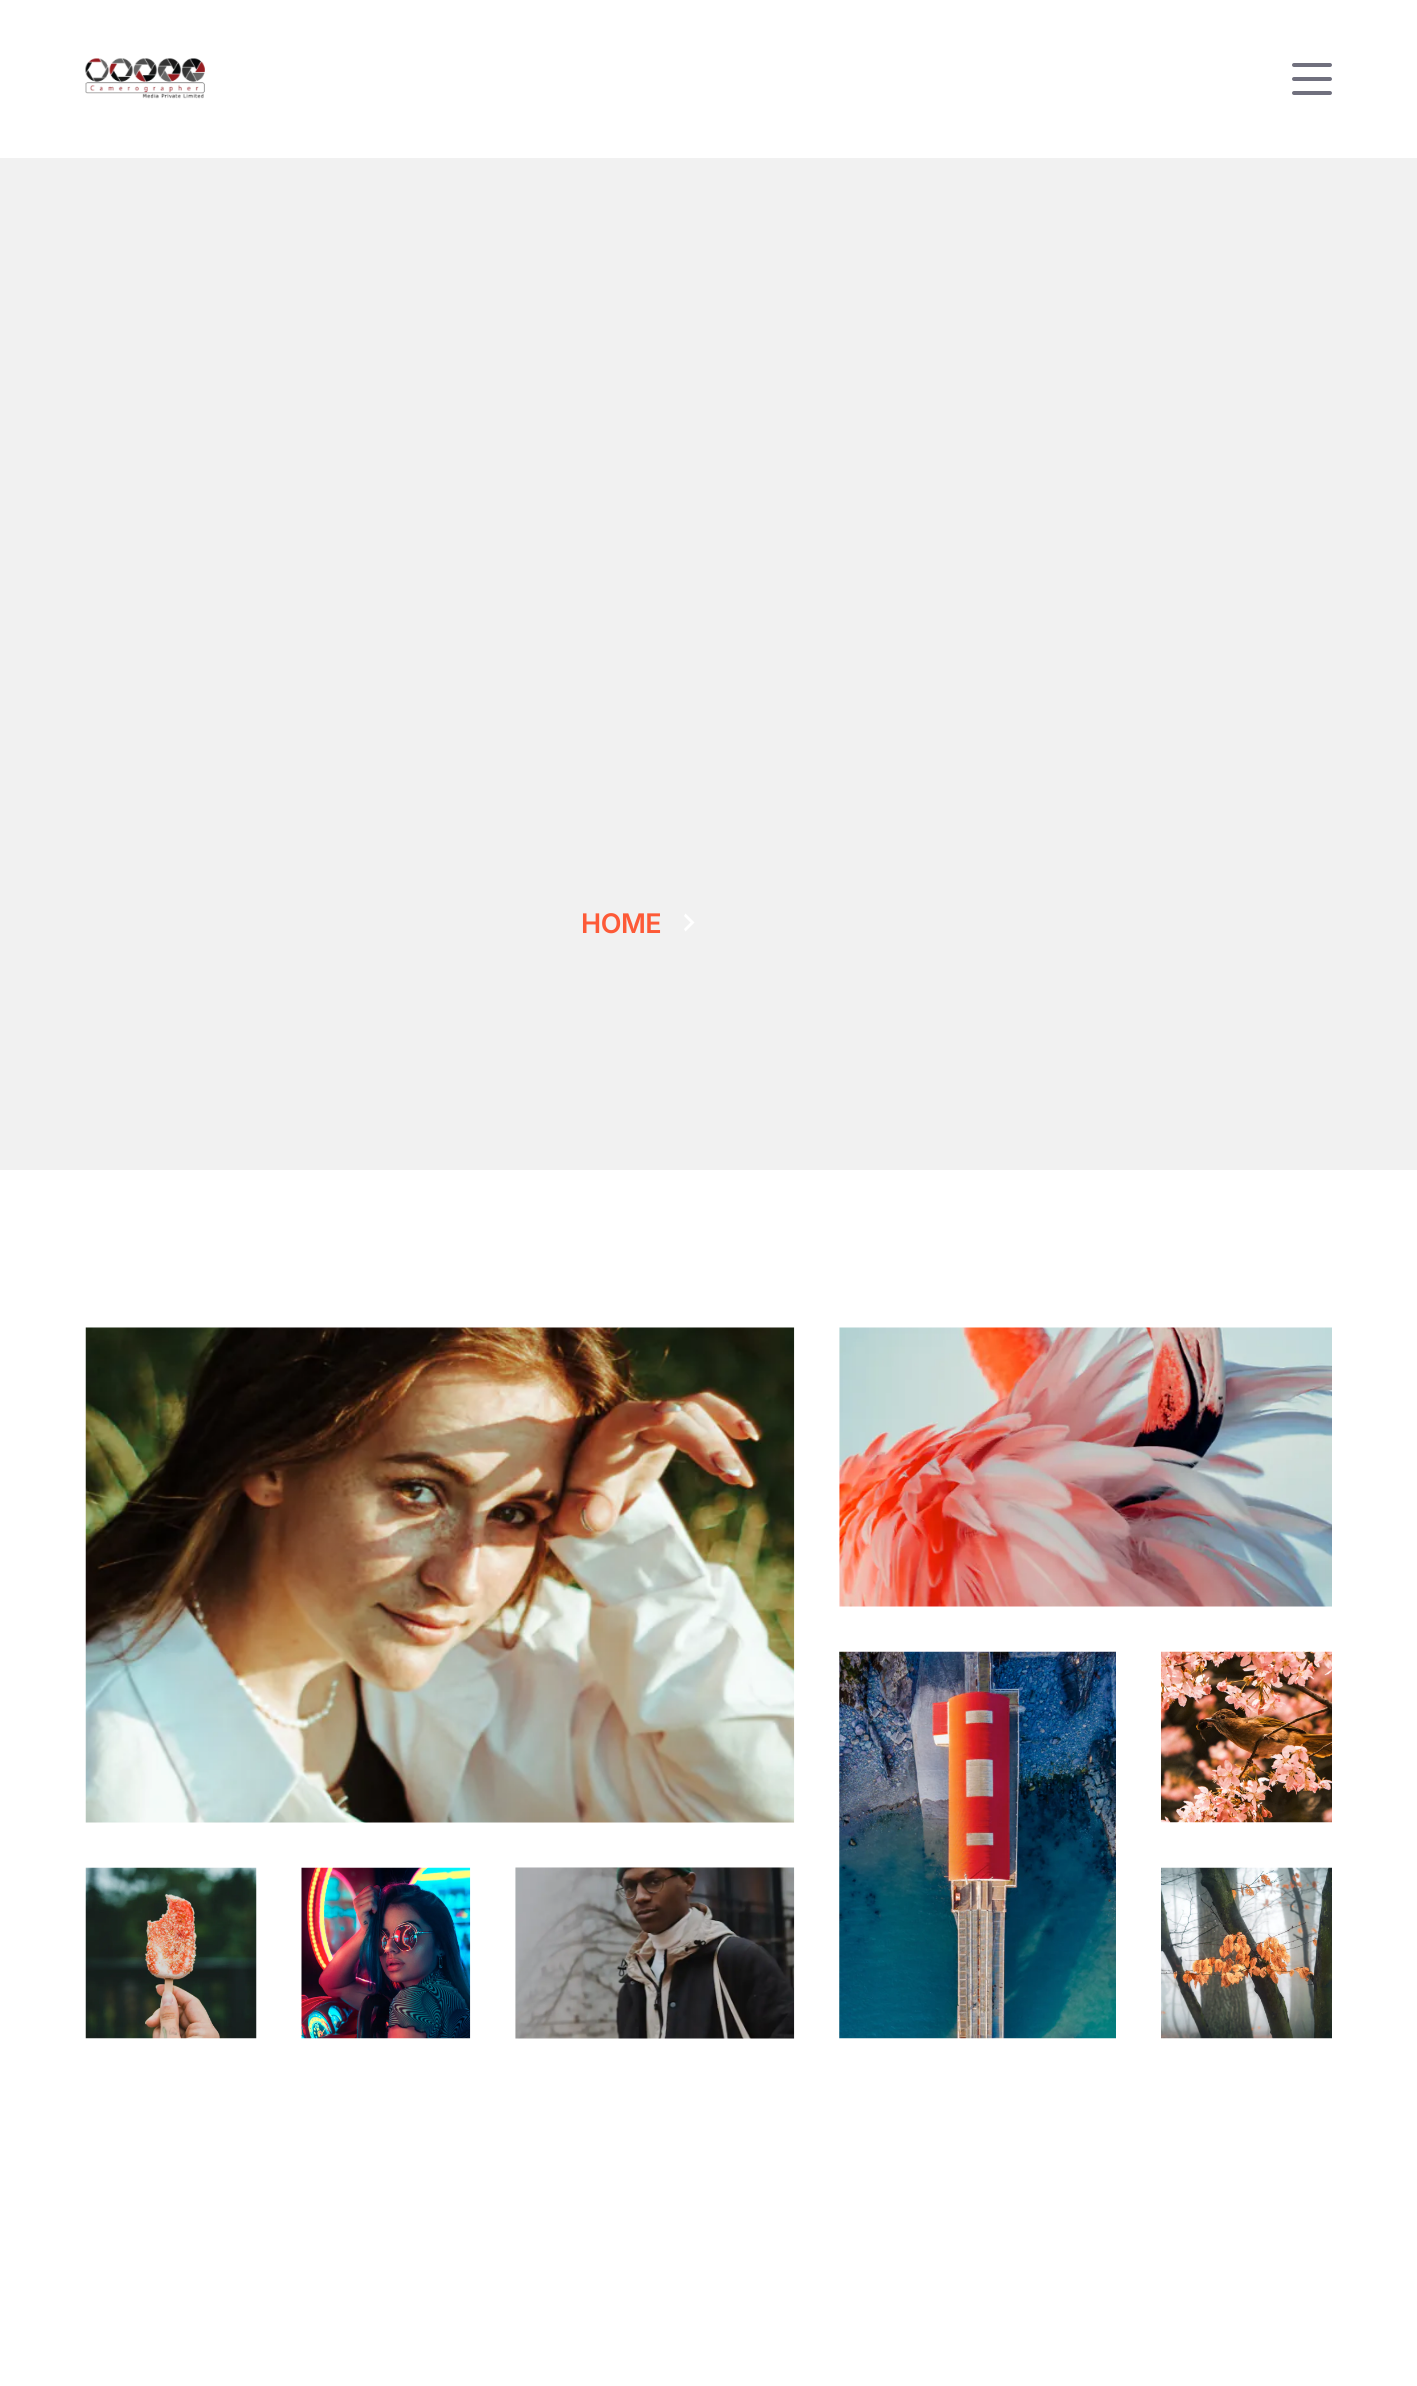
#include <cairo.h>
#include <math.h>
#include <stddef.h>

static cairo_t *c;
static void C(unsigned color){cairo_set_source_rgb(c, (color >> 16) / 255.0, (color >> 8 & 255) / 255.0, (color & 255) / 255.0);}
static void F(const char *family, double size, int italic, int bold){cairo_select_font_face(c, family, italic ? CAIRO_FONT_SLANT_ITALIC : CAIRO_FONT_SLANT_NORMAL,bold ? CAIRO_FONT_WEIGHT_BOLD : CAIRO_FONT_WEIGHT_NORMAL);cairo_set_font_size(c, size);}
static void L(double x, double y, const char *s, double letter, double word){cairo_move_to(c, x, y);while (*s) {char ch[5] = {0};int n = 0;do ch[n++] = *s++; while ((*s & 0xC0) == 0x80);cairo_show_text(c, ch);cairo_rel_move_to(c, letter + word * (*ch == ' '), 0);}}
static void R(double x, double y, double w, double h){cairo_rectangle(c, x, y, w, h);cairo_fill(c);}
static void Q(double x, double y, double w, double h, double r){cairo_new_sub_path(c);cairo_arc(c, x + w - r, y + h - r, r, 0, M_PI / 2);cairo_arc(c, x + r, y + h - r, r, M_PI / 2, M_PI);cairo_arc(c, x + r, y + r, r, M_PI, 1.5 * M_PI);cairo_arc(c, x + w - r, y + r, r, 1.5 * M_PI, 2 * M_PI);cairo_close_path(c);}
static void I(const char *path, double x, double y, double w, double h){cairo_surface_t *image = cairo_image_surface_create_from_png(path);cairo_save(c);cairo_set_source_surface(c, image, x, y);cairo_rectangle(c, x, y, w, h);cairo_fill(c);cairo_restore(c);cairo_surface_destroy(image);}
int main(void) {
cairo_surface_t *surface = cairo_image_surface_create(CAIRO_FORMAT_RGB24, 1417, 2386);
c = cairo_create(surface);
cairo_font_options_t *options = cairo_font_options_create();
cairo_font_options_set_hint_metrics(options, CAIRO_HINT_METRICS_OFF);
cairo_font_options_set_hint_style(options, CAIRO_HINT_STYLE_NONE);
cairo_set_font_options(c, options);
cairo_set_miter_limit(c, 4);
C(0xffffff);
cairo_paint(c);
I("1.png",85,58,120,41);
C(0x70707e);
Q(1292,63,40,4,2);
cairo_fill(c);
Q(1292,77,40,4,2);
cairo_fill(c);
Q(1292,91,40,4,2);
cairo_fill(c);
C(0xf1f1f1);
R(0,158,1417,1012);
F("Inter SemiBold",27,0,0);
C(0xfd5a37);
L(581,933,"HOME",-.5,0);
C(0xffffff);
cairo_new_path(c);
cairo_move_to(c,684,929);
cairo_line_to(c,690.5,922.5);
cairo_line_to(c,684,916);
cairo_line_to(c,685.5,913.5);
cairo_line_to(c,694.5,922.5);
cairo_line_to(c,685.5,931.5);
cairo_close_path(c);
cairo_fill(c);
I("2.png",85,1327,710,496);
I("3.png",839,1327,493,280);
I("4.png",839,1651,277,388);
I("5.png",1161,1651,171,172);
I("6.png",85,1867,172,172);
I("7.png",301,1867,170,172);
I("8.png",515,1867,280,172);
I("9.png",1161,1867,171,172);
cairo_surface_write_to_png(surface, "o.png");
cairo_font_options_destroy(options);
cairo_destroy(c);
cairo_surface_destroy(surface);
return 0;
}
